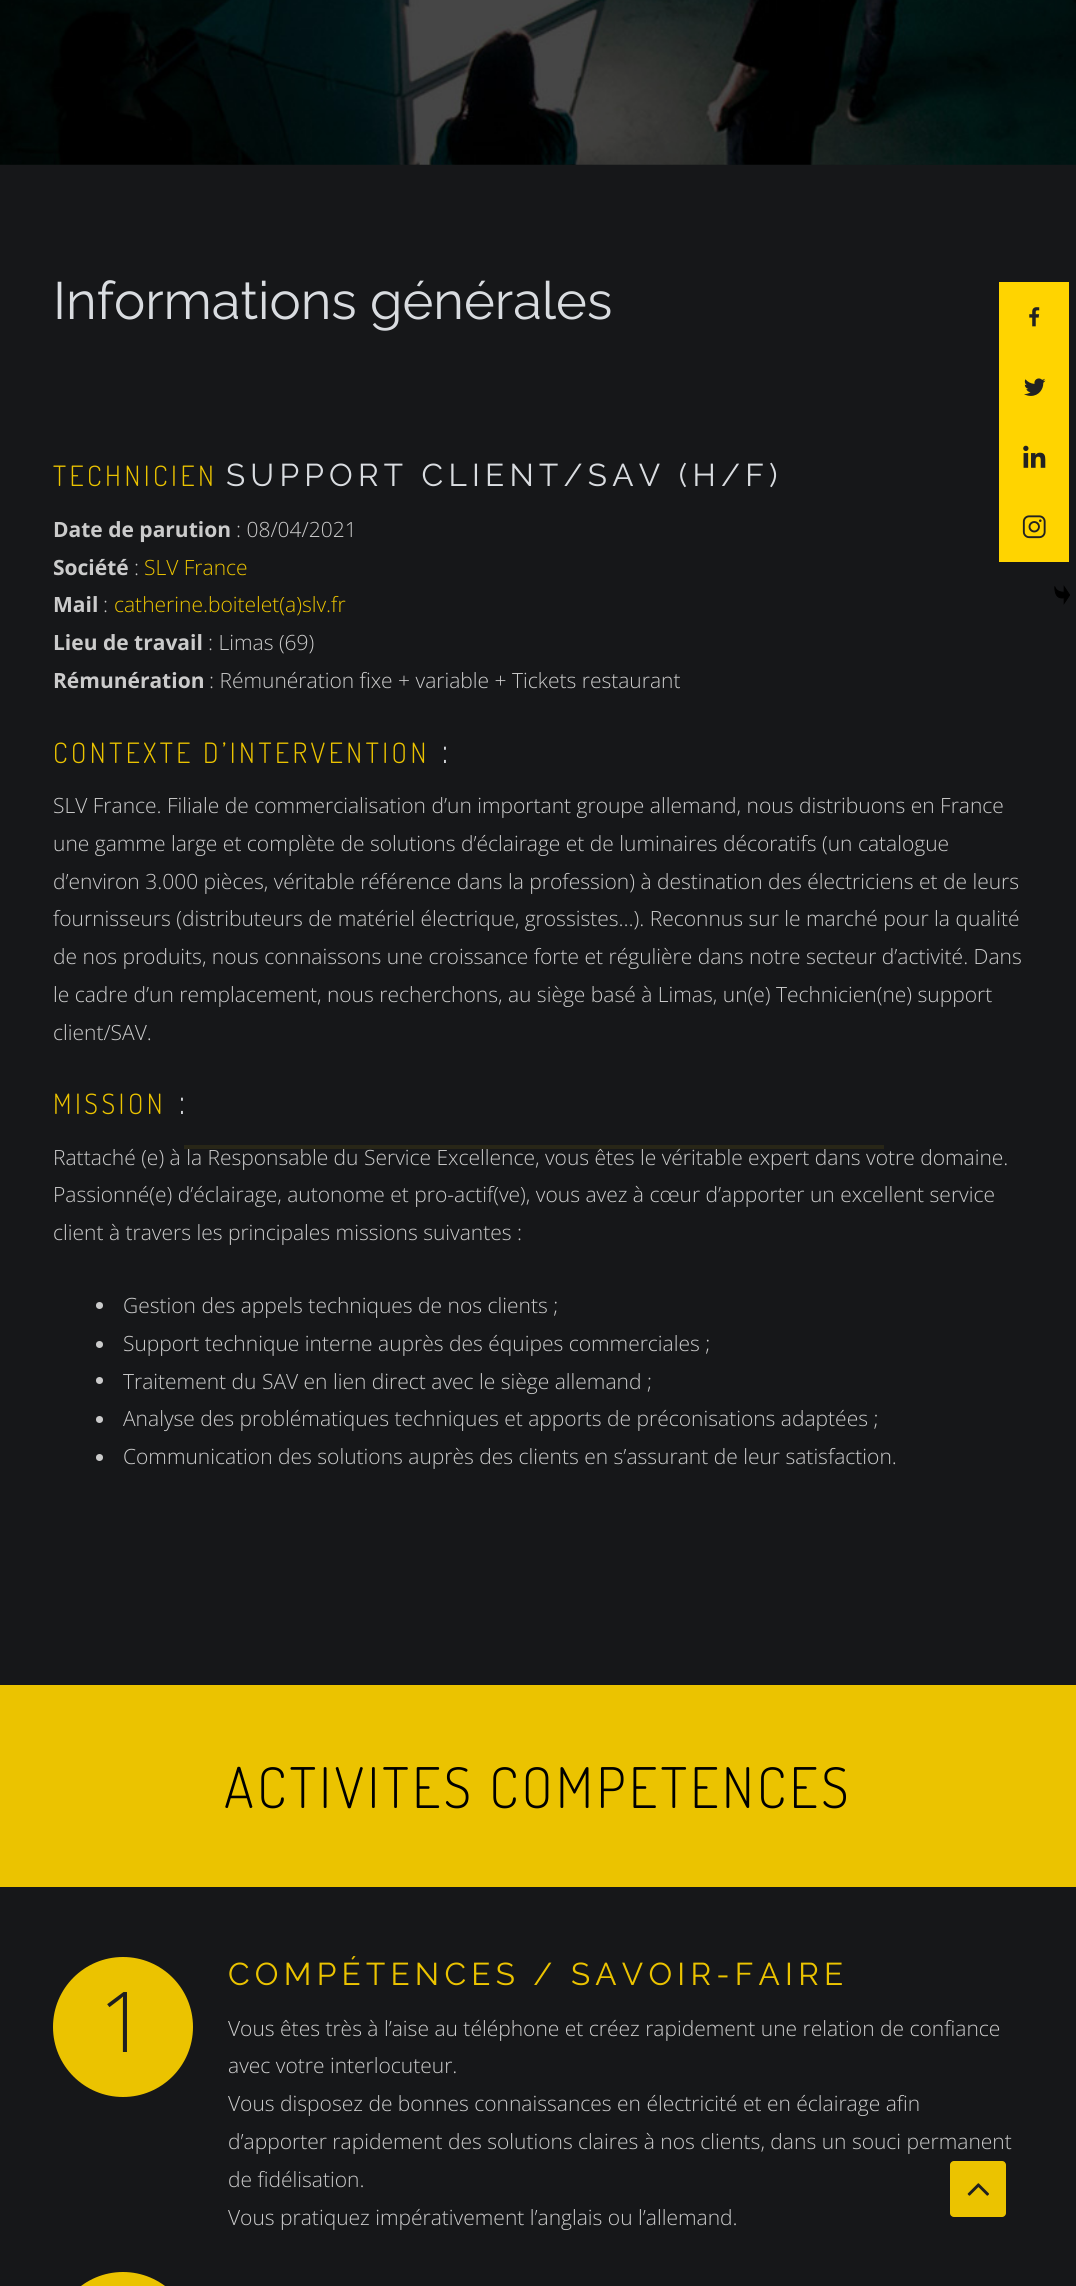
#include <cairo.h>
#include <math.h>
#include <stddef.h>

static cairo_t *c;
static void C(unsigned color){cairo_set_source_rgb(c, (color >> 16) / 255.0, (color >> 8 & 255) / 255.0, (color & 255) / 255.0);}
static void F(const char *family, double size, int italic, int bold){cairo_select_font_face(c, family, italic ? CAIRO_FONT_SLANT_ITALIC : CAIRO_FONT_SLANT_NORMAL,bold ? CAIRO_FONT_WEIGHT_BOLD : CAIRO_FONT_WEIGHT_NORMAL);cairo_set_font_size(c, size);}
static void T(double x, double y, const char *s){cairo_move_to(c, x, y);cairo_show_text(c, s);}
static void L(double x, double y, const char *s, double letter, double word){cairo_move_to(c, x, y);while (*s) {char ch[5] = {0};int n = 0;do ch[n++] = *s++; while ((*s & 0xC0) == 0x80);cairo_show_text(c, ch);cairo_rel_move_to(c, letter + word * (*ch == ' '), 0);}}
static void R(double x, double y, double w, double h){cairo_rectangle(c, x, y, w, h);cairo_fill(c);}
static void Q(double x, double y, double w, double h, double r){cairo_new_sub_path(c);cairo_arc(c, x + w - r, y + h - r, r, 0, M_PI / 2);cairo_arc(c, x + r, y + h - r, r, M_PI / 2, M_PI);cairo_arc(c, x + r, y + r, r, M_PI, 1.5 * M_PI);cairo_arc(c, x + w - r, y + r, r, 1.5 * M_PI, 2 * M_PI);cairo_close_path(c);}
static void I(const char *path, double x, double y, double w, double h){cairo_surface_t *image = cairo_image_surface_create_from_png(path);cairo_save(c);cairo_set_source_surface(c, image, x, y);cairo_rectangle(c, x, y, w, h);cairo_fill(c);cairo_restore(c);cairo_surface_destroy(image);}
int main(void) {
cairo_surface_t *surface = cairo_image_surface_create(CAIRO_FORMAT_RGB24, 1076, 2286);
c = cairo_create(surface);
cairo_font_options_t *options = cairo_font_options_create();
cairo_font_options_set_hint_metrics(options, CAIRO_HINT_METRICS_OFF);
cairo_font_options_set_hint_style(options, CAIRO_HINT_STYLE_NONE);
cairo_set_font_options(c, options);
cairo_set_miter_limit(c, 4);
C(0x161719);
cairo_paint(c);
I("1.png",0,0,1076,165);
F("Raleway Thin",52.5,0,0);
C(0xd9dce0);
T(53,319,"Informations générales");
F("Dosis Light",28,0,0);
C(0xebc300);
L(53,486,"TECHNICIEN",3.5,0);
F("Raleway Thin",31.5,0,0);
C(0xd9dce0);
L(226,486,"SUPPORT CLIENT/SAV (H/F)",5.25,0);
F("Open Sans",21,0,1);
C(0xcbcbcb);
T(53,537,"Date de parution");
F("Open Sans Light",21,0,0);
T(236,537,": 08/04/2021");
F("Open Sans",21,0,1);
T(53,575,"Société");
F("Open Sans Light",21,0,0);
T(134,575,":");
C(0xebc300);
T(144,575,"SLV France");
F("Open Sans",21,0,1);
C(0xcbcbcb);
T(53,612,"Mail");
F("Open Sans Light",21,0,0);
T(103,612,":");
C(0xebc300);
T(114,612,"catherine.boitelet(a)slv.fr");
F("Open Sans",21,0,1);
C(0xcbcbcb);
T(53,650,"Lieu de travail");
F("Open Sans Light",21,0,0);
T(208,650,": Limas (69)");
F("Open Sans",21,0,1);
T(53,688,"Rémunération");
F("Open Sans Light",21,0,0);
T(209,688,": Rémunération fixe + variable + Tickets restaurant");
F("Dosis Light",28,0,0);
C(0xebc300);
L(53,763,"CONTEXTE D’INTERVENTION",3.5,0);
F("Raleway Thin",31.5,0,0);
C(0xd9dce0);
L(442,763,":",5.25,0);
F("Open Sans Light",21,0,0);
C(0xcbcbcb);
T(53,813,"SLV France. Filiale de commercialisation d’un important groupe allemand, nous distribuons en France");
T(53,851,"une gamme large et complète de solutions d’éclairage et de luminaires décoratifs (un catalogue");
T(53,889,"d’environ 3.000 pièces, véritable référence dans la profession) à destination des électriciens et de leurs");
T(53,926,"fournisseurs (distributeurs de matériel électrique, grossistes…). Reconnus sur le marché pour la qualité");
T(53,964,"de nos produits, nous connaissons une croissance forte et régulière dans notre secteur d’activité. Dans");
T(53,1002,"le cadre d’un remplacement, nous recherchons, au siège basé à Limas, un(e) Technicien(ne) support");
T(53,1040,"client/SAV.");
F("Dosis Light",28,0,0);
C(0xebc300);
L(53,1114,"MISSION",3.5,0);
F("Raleway Thin",31.5,0,0);
C(0xd9dce0);
L(179,1114,":",5.25,0);
F("Open Sans Light",21,0,0);
C(0xcbcbcb);
T(53,1165,"Rattaché (e) à la Responsable du Service Excellence, vous êtes le véritable expert dans votre domaine.");
T(53,1202,"Passionné(e) d’éclairage, autonome et pro-actif(ve), vous avez à cœur d’apporter un excellent service");
T(53,1240,"client à travers les principales missions suivantes :");
cairo_new_path(c);
cairo_arc(c,99.5,1305.5,3.5,0,2 * M_PI);
cairo_fill(c);
T(123,1313,"Gestion des appels techniques de nos clients ;");
cairo_new_path(c);
cairo_arc(c,99.5,1344.5,3.5,0,2 * M_PI);
cairo_fill(c);
T(123,1351,"Support technique interne auprès des équipes commerciales ;");
cairo_new_path(c);
cairo_arc(c,99.5,1380.5,3.5,0,2 * M_PI);
cairo_fill(c);
T(123,1389,"Traitement du SAV en lien direct avec le siège allemand ;");
cairo_new_path(c);
cairo_arc(c,99.5,1419.5,3.5,0,2 * M_PI);
cairo_fill(c);
T(123,1426,"Analyse des problématiques techniques et apports de préconisations adaptées ;");
cairo_new_path(c);
cairo_arc(c,99.5,1457.5,3.5,0,2 * M_PI);
cairo_fill(c);
T(123,1464,"Communication des solutions auprès des clients en s’assurant de leur satisfaction.");
C(0xffd400);
R(999,282,70,280);
I("2.png",1029,307,11,20);
I("3.png",1024,378,22,18);
I("4.png",1023,445,23,23);
I("5.png",1022,515,24,24);
I("6.png",1054,585,16,20);
C(0xebc300);
R(0,1685,1076,202);
F("Dosis Light",56,0,0);
C(0x000000);
L(224,1808,"ACTIVITES COMPETENCES",3.5,0);
C(0xebc300);
cairo_new_path(c);
cairo_arc(c,123,2027,70,0,2 * M_PI);
cairo_fill(c);
F("Open Sans Light",84,0,0);
C(0x1f1f1f);
T(99,2052,"1");
F("Raleway Thin",31.5,0,0);
C(0xebc300);
L(228,1985,"COMPÉTENCES / SAVOIR-FAIRE",5.25,0);
F("Open Sans Light",21,0,0);
C(0xcbcbcb);
T(228,2036,"Vous êtes très à l’aise au téléphone et créez rapidement une relation de confiance");
T(228,2073,"avec votre interlocuteur.");
T(228,2111,"Vous disposez de bonnes connaissances en électricité et en éclairage afin");
T(228,2149,"d’apporter rapidement des solutions claires à nos clients, dans un souci permanent");
T(228,2187,"de fidélisation.");
T(228,2225,"Vous pratiquez impérativement l’anglais ou l’allemand.");
C(0xebc300);
Q(53,2272,140,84,70);
cairo_fill(c);
Q(950,2161,56,56,4);
cairo_fill(c);
I("7.png",967,2183,22,13);
cairo_set_source_rgba(c,1,0.831,0,0.08);
R(184,1145,700,4);
cairo_surface_write_to_png(surface, "o.png");
cairo_font_options_destroy(options);
cairo_destroy(c);
cairo_surface_destroy(surface);
return 0;
}
